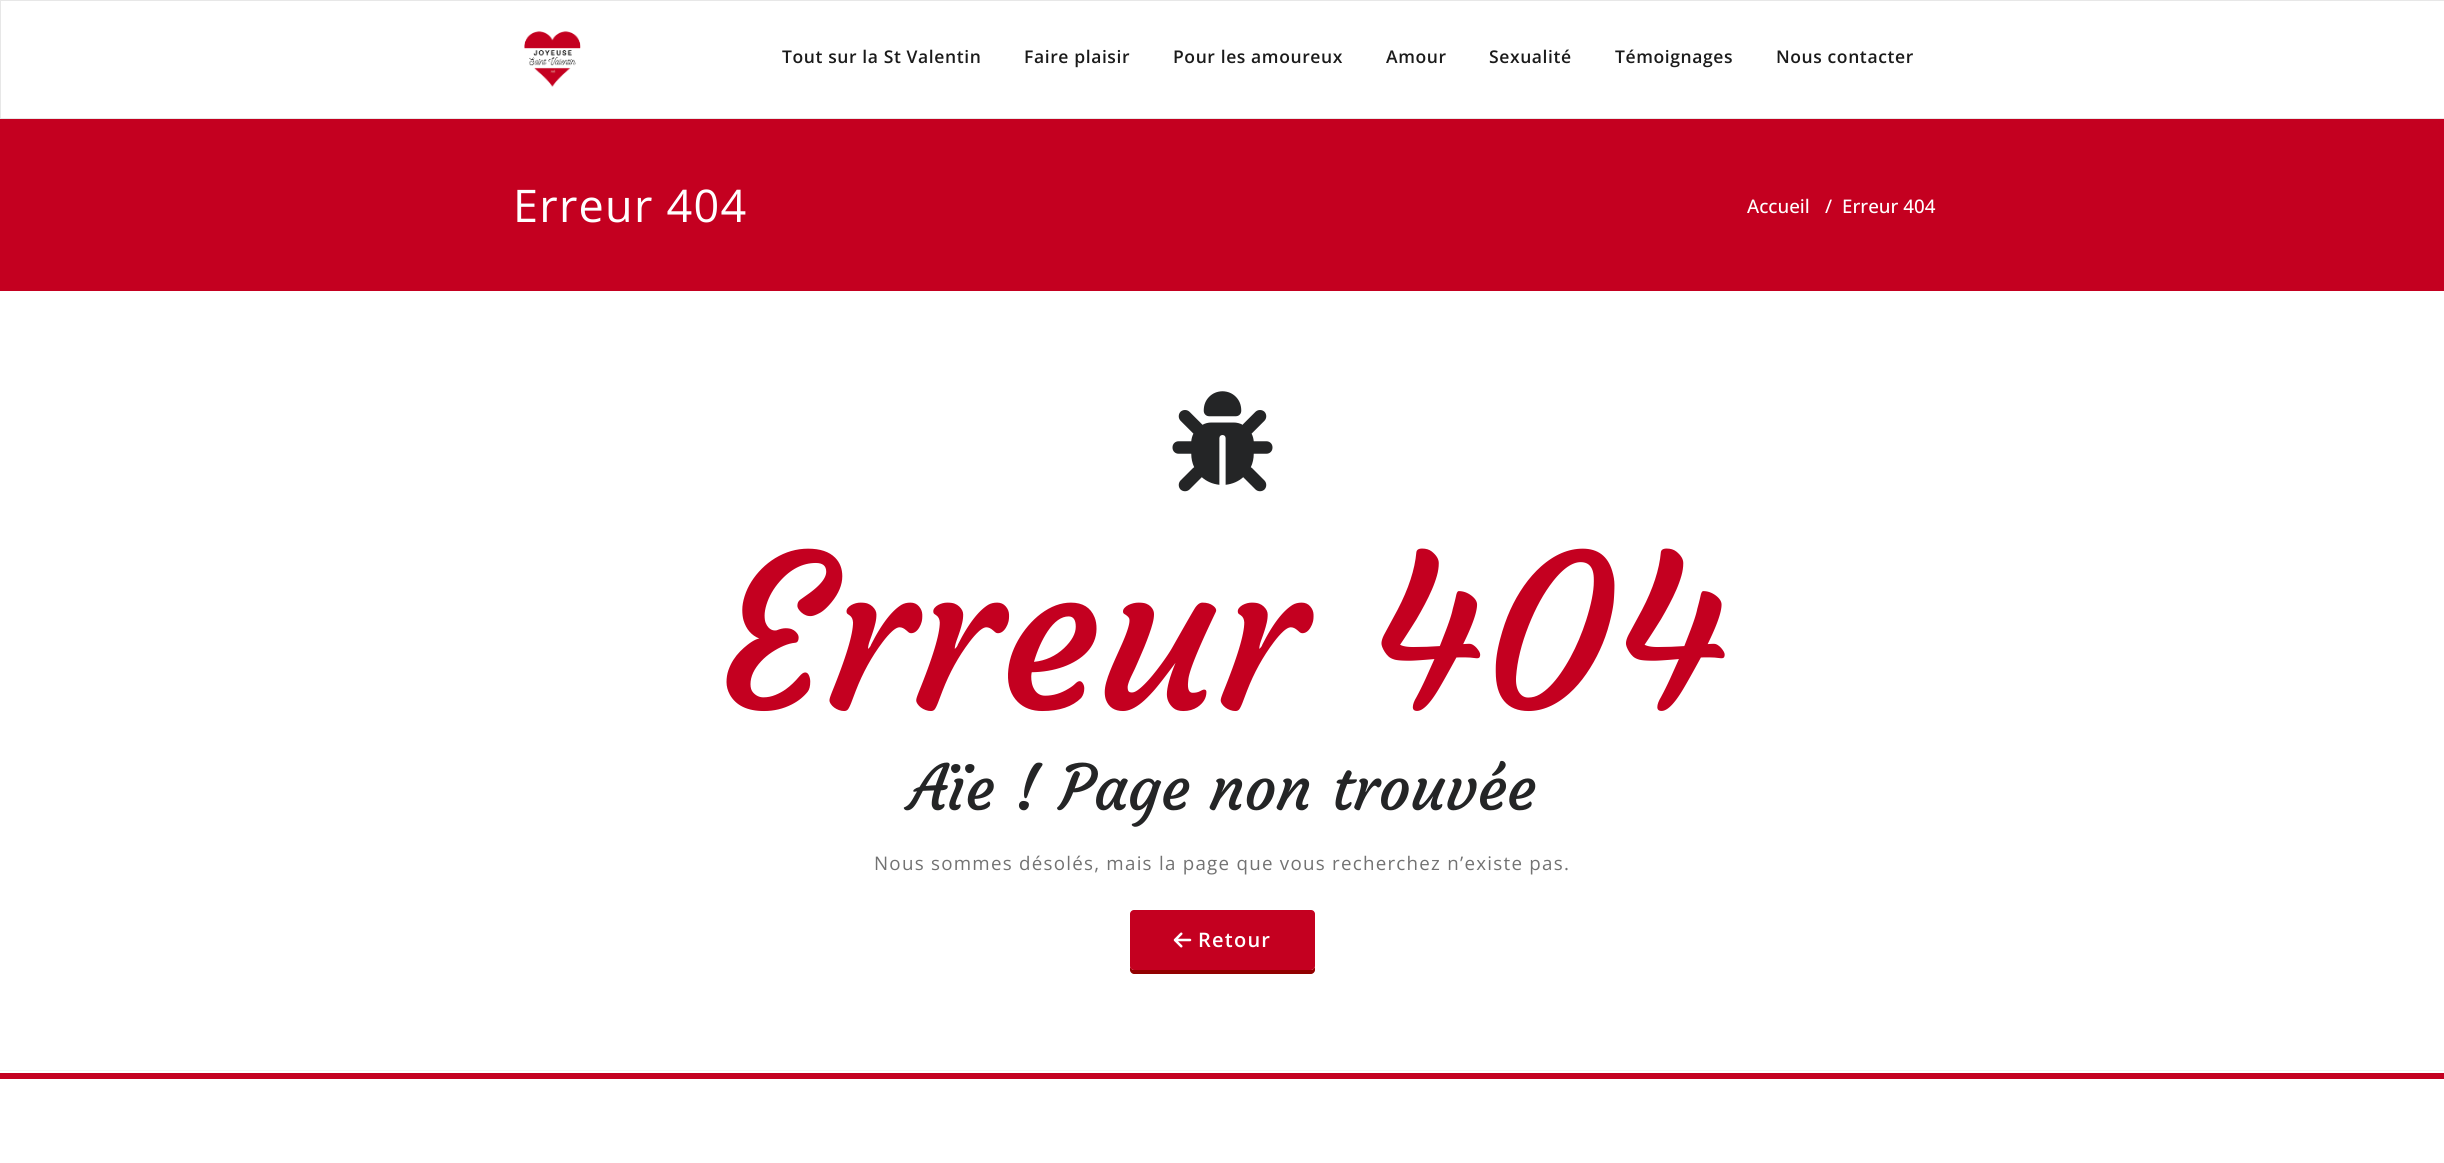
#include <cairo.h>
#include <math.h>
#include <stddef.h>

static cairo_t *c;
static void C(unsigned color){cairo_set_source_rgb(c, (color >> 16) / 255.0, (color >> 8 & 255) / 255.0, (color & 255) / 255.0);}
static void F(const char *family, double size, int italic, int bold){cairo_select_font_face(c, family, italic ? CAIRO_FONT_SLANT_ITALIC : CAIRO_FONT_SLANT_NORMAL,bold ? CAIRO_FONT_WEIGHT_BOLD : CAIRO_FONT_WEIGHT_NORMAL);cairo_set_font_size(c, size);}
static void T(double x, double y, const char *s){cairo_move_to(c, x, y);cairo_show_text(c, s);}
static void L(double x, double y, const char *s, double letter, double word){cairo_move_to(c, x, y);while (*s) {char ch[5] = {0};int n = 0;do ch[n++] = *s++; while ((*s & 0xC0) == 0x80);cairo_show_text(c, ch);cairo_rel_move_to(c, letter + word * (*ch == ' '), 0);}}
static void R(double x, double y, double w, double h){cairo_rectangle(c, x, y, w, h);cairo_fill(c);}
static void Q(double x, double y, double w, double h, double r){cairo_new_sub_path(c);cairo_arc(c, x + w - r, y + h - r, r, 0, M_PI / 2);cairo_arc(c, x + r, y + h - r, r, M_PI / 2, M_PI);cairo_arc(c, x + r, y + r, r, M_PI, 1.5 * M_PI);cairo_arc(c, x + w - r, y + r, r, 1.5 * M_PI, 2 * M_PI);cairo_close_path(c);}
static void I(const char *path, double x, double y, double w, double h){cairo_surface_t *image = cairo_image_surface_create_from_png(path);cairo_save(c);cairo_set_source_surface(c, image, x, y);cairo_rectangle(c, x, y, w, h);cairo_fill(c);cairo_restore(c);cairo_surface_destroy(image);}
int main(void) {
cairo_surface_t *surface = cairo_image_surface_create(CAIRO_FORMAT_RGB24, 2444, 1163);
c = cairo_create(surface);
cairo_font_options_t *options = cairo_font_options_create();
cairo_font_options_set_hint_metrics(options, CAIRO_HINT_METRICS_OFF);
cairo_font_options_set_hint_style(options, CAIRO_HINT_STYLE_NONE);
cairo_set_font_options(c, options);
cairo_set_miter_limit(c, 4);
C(0xffffff);
cairo_paint(c);
cairo_rectangle(c,.5,.5,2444,118);
C(0xe7e7e7);
cairo_set_line_width(c,1);
cairo_stroke(c);
I("1.png",524,31,57,56);
F("Open Sans SemiBold",17.5,0,0);
C(0x1b1b1b);
L(782,63,"Tout sur la St Valentin",.6,0);
L(1024,63,"Faire plaisir",.6,0);
L(1173,63,"Pour les amoureux",.6,0);
L(1386,63,"Amour",.6,0);
L(1489,63,"Sexualité",.6,0);
L(1615,63,"Témoignages",.6,0);
L(1776,63,"Nous contacter",.6,0);
C(0xc40020);
R(0,119,2444,172);
F("Open Sans",45,0,0);
C(0xffffff);
L(513,222,"Erreur 404",1.25,0);
F("Open Sans Medium",18.75,0,0);
T(1747,213,"Accueil");
T(1825,213,"/");
T(1842,213,"Erreur 404");
I("2.png",1172,391,101,101);
F("Courgette",212.5,0,0);
C(0xc40020);
T(718,710,"Erreur 404");
F("Courgette",62.5,0,0);
C(0x242526);
T(909,810,"Aïe ! Page non trouvée");
F("Open Sans",18.75,0,0);
C(0x727272);
L(874,870,"Nous sommes désolés, mais la page que vous recherchez n’existe pas.",1.25,0);
C(0x920000);
cairo_new_path(c);
cairo_move_to(c,1130,966);
cairo_line_to(c,1130,970);
cairo_curve_to(c,1130,972,1132,974,1134,974);
cairo_line_to(c,1311,974);
cairo_curve_to(c,1313,974,1315,972,1315,970);
cairo_line_to(c,1315,966);
cairo_curve_to(c,1315,968,1313,970,1311,970);
cairo_line_to(c,1134,970);
cairo_curve_to(c,1132,970,1130,968,1130,966);
cairo_close_path(c);
cairo_fill(c);
C(0xc40020);
Q(1130,910,185,60,4);
cairo_fill(c);
I("3.png",1173,932,19,16);
F("Open Sans SemiBold",20,0,0);
C(0xffffff);
L(1198,947,"Retour",1.25,0);
C(0xf4f4f4);
R(0,1070,2444,1);
C(0xc40020);
R(0,1073,2444,6);
cairo_surface_write_to_png(surface, "o.png");
cairo_font_options_destroy(options);
cairo_destroy(c);
cairo_surface_destroy(surface);
return 0;
}
